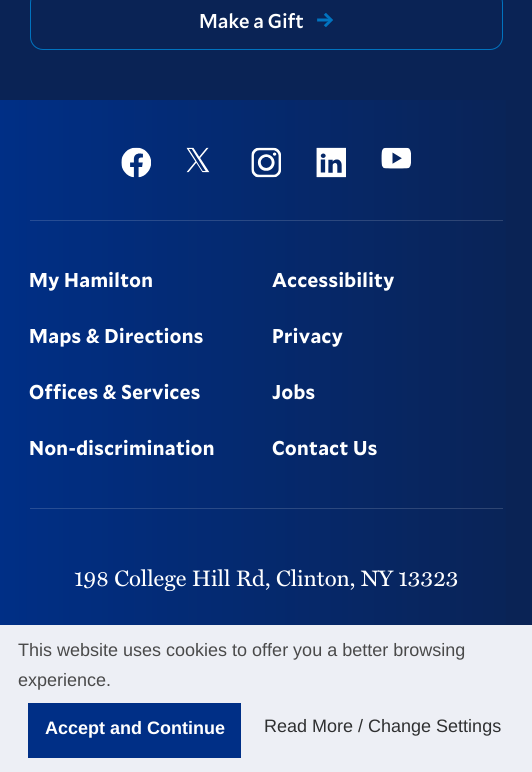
#include <cairo.h>
#include <math.h>
#include <stddef.h>

static cairo_t *c;
static void C(unsigned color){cairo_set_source_rgb(c, (color >> 16) / 255.0, (color >> 8 & 255) / 255.0, (color & 255) / 255.0);}
static void F(const char *family, double size, int italic, int bold){cairo_select_font_face(c, family, italic ? CAIRO_FONT_SLANT_ITALIC : CAIRO_FONT_SLANT_NORMAL,bold ? CAIRO_FONT_WEIGHT_BOLD : CAIRO_FONT_WEIGHT_NORMAL);cairo_set_font_size(c, size);}
static void T(double x, double y, const char *s){cairo_move_to(c, x, y);cairo_show_text(c, s);}
static void L(double x, double y, const char *s, double letter, double word){cairo_move_to(c, x, y);while (*s) {char ch[5] = {0};int n = 0;do ch[n++] = *s++; while ((*s & 0xC0) == 0x80);cairo_show_text(c, ch);cairo_rel_move_to(c, letter + word * (*ch == ' '), 0);}}
static void R(double x, double y, double w, double h){cairo_rectangle(c, x, y, w, h);cairo_fill(c);}
static void Q(double x, double y, double w, double h, double r){cairo_new_sub_path(c);cairo_arc(c, x + w - r, y + h - r, r, 0, M_PI / 2);cairo_arc(c, x + r, y + h - r, r, M_PI / 2, M_PI);cairo_arc(c, x + r, y + r, r, M_PI, 1.5 * M_PI);cairo_arc(c, x + w - r, y + r, r, 1.5 * M_PI, 2 * M_PI);cairo_close_path(c);}
static void I(const char *path, double x, double y, double w, double h){cairo_surface_t *image = cairo_image_surface_create_from_png(path);cairo_save(c);cairo_set_source_surface(c, image, x, y);cairo_rectangle(c, x, y, w, h);cairo_fill(c);cairo_restore(c);cairo_surface_destroy(image);}
int main(void) {
cairo_surface_t *surface = cairo_image_surface_create(CAIRO_FORMAT_RGB24, 532, 772);
c = cairo_create(surface);
cairo_font_options_t *options = cairo_font_options_create();
cairo_font_options_set_hint_metrics(options, CAIRO_HINT_METRICS_OFF);
cairo_font_options_set_hint_style(options, CAIRO_HINT_STYLE_NONE);
cairo_set_font_options(c, options);
cairo_set_miter_limit(c, 4);
cairo_pattern_t *gradient;
C(0x0a2355);
cairo_paint(c);
Q(30.5,-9.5,472,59,12.5);
C(0x0173bf);
cairo_set_line_width(c,1);
cairo_stroke(c);
F("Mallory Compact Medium",20,0,0);
C(0xffffff);
T(199,28,"Make a Gift");
I("1.png",317,13,16,14);
gradient = cairo_pattern_create_linear(0,436,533,436);
cairo_pattern_add_color_stop_rgba(gradient,0,0,0.184,0.525,1);
cairo_pattern_add_color_stop_rgba(gradient,1,0.039,0.137,0.333,1);
cairo_set_source(c,gradient);
cairo_pattern_destroy(gradient);
R(0,100,506,525);
gradient = cairo_pattern_create_linear(0,436,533,436);
cairo_pattern_add_color_stop_rgba(gradient,0,0.149,0.306,0.596,1);
cairo_pattern_add_color_stop_rgba(gradient,1,0.184,0.267,0.435,1);
cairo_set_source(c,gradient);
cairo_pattern_destroy(gradient);
R(30,508,473,1);
R(30,220,473,1);
I("2.png",121,147,30,31);
I("3.png",186,147,24,26);
I("4.png",251,147,30,31);
I("5.png",316,147,30,31);
I("6.png",381,147,30,22);
F("Mallory Compact",20,0,1);
C(0xffffff);
L(29,287,"My Hamilton",.4,0);
L(272,287,"Accessibility",.4,0);
L(29,343,"Maps & Directions",.4,0);
L(272,343,"Privacy",.4,0);
L(29,399,"Offices & Services",.4,0);
L(272,399,"Jobs",.4,0);
L(29,455,"Non-discrimination",.4,0);
L(272,455,"Contact Us",.4,0);
F("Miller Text",22.5,0,0);
T(74,586,"198 College Hill Rd, Clinton, NY 13323");
C(0xedeff5);
R(0,625,532,147);
F("Liberation Sans",18,0,0);
C(0x4a4a4a);
T(18,656,"This website uses cookies to offer you a better browsing");
T(18,686,"experience.");
C(0x002f86);
R(28,703,213,55);
F("Liberation Sans",18,0,1);
C(0xffffff);
T(45,734,"Accept and Continue");
F("Liberation Sans",18,0,0);
C(0x2f3031);
T(264,732,"Read More / Change Settings");
cairo_surface_write_to_png(surface, "o.png");
cairo_font_options_destroy(options);
cairo_destroy(c);
cairo_surface_destroy(surface);
return 0;
}
